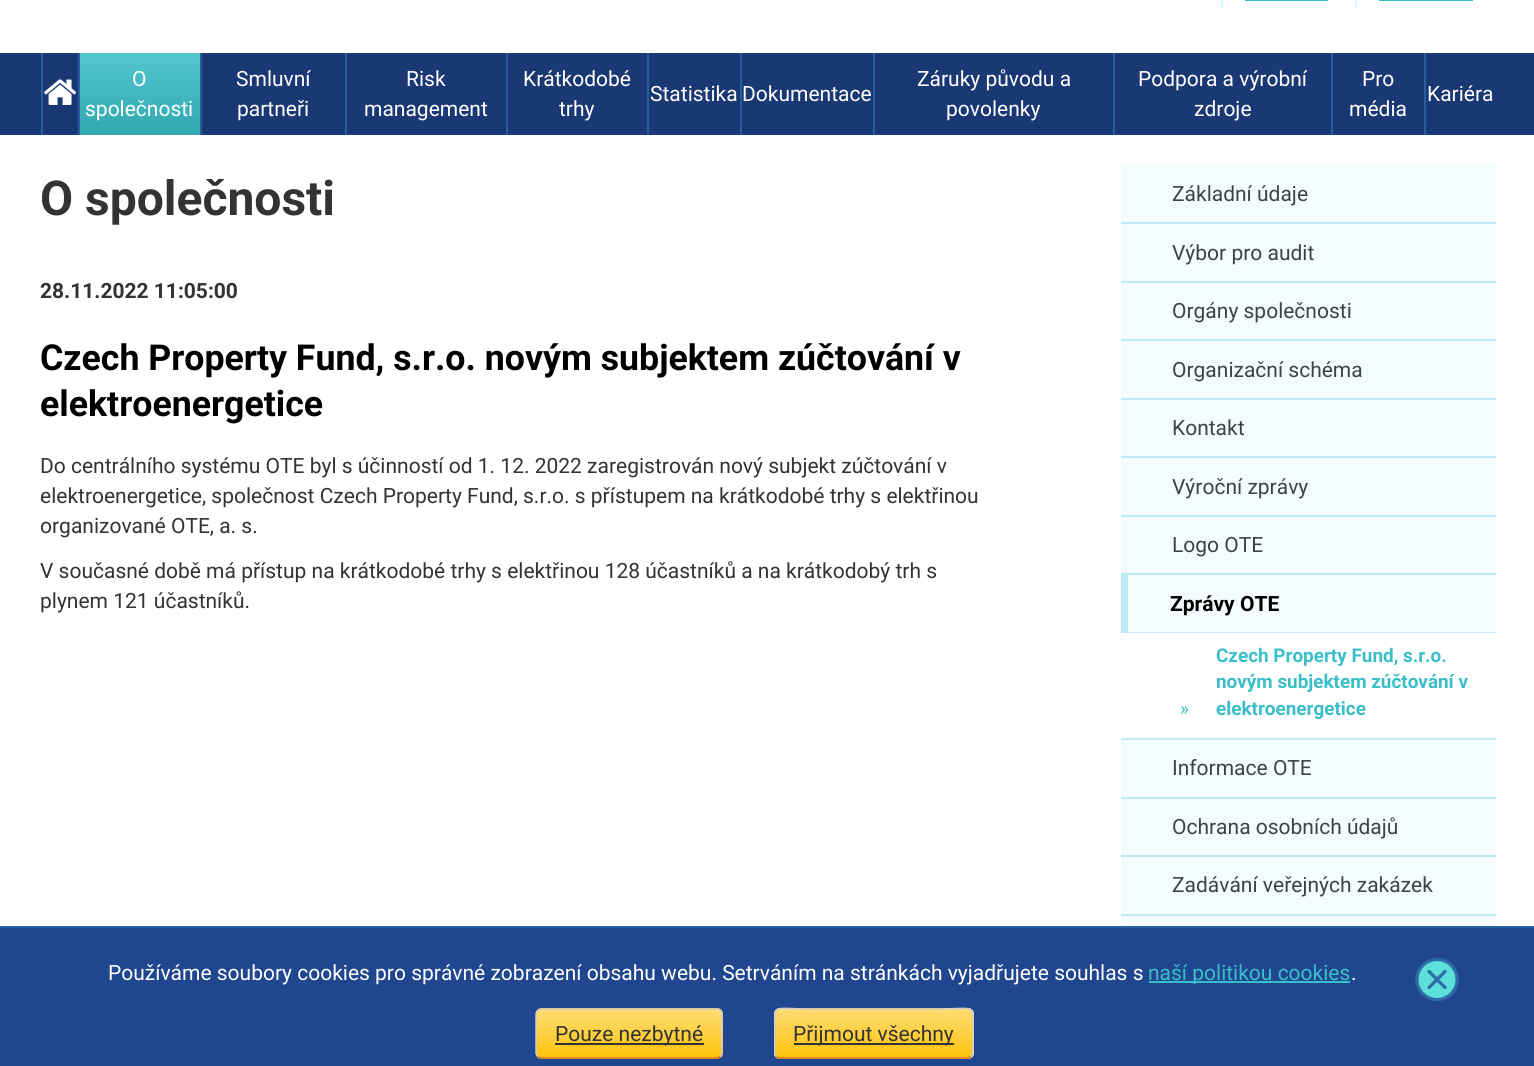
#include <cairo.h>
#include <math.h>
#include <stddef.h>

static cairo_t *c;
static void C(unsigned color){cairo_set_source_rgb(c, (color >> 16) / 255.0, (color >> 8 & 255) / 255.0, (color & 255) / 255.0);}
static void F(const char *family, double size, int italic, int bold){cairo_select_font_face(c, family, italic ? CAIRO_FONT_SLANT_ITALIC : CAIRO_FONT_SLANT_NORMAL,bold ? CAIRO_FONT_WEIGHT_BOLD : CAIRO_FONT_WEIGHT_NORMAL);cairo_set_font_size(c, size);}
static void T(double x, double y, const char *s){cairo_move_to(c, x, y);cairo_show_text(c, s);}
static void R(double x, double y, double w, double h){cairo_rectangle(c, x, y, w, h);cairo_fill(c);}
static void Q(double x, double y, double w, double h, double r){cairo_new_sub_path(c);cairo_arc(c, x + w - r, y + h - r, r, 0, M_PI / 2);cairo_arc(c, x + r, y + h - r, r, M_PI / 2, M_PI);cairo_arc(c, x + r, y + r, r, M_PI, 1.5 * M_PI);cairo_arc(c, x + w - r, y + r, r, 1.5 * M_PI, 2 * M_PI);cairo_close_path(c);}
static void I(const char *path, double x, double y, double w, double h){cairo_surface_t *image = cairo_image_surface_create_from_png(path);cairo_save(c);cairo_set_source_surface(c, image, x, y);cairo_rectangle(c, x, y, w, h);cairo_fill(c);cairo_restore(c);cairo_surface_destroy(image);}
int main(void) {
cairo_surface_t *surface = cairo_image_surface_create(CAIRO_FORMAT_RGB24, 1534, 1066);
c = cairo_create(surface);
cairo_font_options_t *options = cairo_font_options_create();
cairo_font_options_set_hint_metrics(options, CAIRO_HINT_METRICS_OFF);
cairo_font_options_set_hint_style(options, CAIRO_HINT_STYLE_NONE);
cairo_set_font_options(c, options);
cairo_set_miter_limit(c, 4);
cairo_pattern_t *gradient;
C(0xffffff);
cairo_paint(c);
C(0xccffff);
R(1221,0,2,8);
C(0x3abec9);
R(1245,0,83,1);
C(0xccffff);
R(1355,0,2,8);
C(0x3abec9);
R(1379,0,94,1);
C(0x1a3873);
R(0,53,1534,82);
C(0x275e9d);
R(41,53,2,82);
I("1.png",44,79,33,26);
R(78,53,2,82);
gradient = cairo_pattern_create_linear(80,53,80,135);
cairo_pattern_add_color_stop_rgba(gradient,0,0.322,0.78,0.816,1);
cairo_pattern_add_color_stop_rgba(gradient,1,0.192,0.655,0.69,1);
cairo_set_source(c,gradient);
cairo_pattern_destroy(gradient);
R(80,53,120,82);
F("Roboto",21,0,0);
C(0xffffff);
T(132,86,"O");
T(85,116,"společnosti");
C(0x275e9d);
R(200,53,2,82);
C(0xffffff);
T(236,86,"Smluvní");
T(237,116,"partneři");
C(0x275e9d);
R(345,53,2,82);
C(0xffffff);
T(406,86,"Risk");
T(364,116,"management");
C(0x275e9d);
R(506,53,2,82);
C(0xffffff);
T(523,86,"Krátkodobé");
T(559,116,"trhy");
C(0x275e9d);
R(647,53,2,82);
C(0xffffff);
T(650,101,"Statistika");
C(0x275e9d);
R(740,53,2,82);
C(0xffffff);
T(742,101,"Dokumentace");
C(0x275e9d);
R(873,53,2,82);
C(0xffffff);
T(917,86,"Záruky původu a");
T(946,116,"povolenky");
C(0x275e9d);
R(1113,53,2,82);
C(0xffffff);
T(1138,86,"Podpora a výrobní");
T(1194,116,"zdroje");
C(0x275e9d);
R(1331,53,2,82);
C(0xffffff);
T(1362,86,"Pro");
T(1349,116,"média");
C(0x275e9d);
R(1424,53,2,82);
C(0xffffff);
T(1427,101,"Kariéra");
F("Roboto",48,0,1);
C(0x333333);
T(40,215,"O společnosti");
F("Roboto",21,0,1);
T(40,298,"28.11.2022 11:05:00");
F("Roboto",35.7,0,1);
C(0x000000);
T(40,370,"Czech Property Fund, s.r.o. novým subjektem zúčtování v");
T(40,416,"elektroenergetice");
F("Roboto",21,0,0);
C(0x333333);
T(40,473,"Do centrálního systému OTE byl s účinností od 1. 12. 2022 zaregistrován nový subjekt zúčtování v");
T(40,503,"elektroenergetice, společnost Czech Property Fund, s.r.o. s přístupem na krátkodobé trhy s elektřinou");
T(40,533,"organizované OTE, a. s.");
T(40,578,"V současné době má přístup na krátkodobé trhy s elektřinou 128 účastníků a na krátkodobý trh s");
T(40,608,"plynem 121 účastníků.");
C(0xf4fcfd);
R(1121,165,375,761);
C(0x394645);
T(1172,201,"Základní údaje");
C(0xbcebf4);
R(1121,222,375,2);
C(0x394645);
T(1172,260,"Výbor pro audit");
C(0xbcebf4);
R(1121,281,375,2);
C(0x394645);
T(1172,318,"Orgány společnosti");
C(0xbcebf4);
R(1121,339,375,2);
C(0x394645);
T(1172,377,"Organizační schéma");
C(0xbcebf4);
R(1121,398,375,2);
C(0x394645);
T(1172,435,"Kontakt");
C(0xbcebf4);
R(1121,456,375,2);
C(0x394645);
T(1172,494,"Výroční zprávy");
C(0xbcebf4);
R(1121,515,375,2);
C(0x394645);
T(1172,552,"Logo OTE");
C(0xbcebf4);
R(1121,573,375,2);
R(1121,632,375,1);
R(1121,573,7,60);
F("Roboto",21,0,1);
C(0x000000);
T(1170,611,"Zprávy OTE");
C(0xffffff);
R(1121,633,375,105);
F("Roboto",18.9,0,0);
C(0x3abec9);
T(1180,715,"»");
F("Roboto",18.9,0,1);
T(1216,662,"Czech Property Fund, s.r.o.");
T(1216,688,"novým subjektem zúčtování v");
T(1216,715,"elektroenergetice");
C(0xbcebf4);
R(1121,738,375,2);
F("Roboto",21,0,0);
C(0x394645);
T(1172,775,"Informace OTE");
C(0xbcebf4);
R(1121,797,375,2);
C(0x394645);
T(1172,834,"Ochrana osobních údajů");
C(0xbcebf4);
R(1121,855,375,2);
C(0x394645);
T(1172,892,"Zadávání veřejných zakázek");
C(0xbcebf4);
R(1121,914,375,2);
C(0x1f468e);
R(0,928,1534,138);
C(0x275e9d);
R(0,926,1534,2);
C(0xffffff);
T(108,980,"Používáme soubory cookies pro správné zobrazení obsahu webu. Setrváním na stránkách vyjadřujete souhlas s");
C(0x3abec9);
R(1149,981,201,2);
T(1148,980,"naší politikou cookies");
C(0xffffff);
T(1351,980,".");
I("2.png",536,1008,187,51);
cairo_new_path(c);
cairo_move_to(c,720.5,1056.5);
cairo_curve_to(c,719.5,1057.5,718.5,1058,717,1058);
cairo_line_to(c,541.5,1058);
cairo_curve_to(c,540,1058,539,1057.5,538,1056.5);
C(0xd16b06);
cairo_set_line_width(c,1.5);
cairo_stroke(c);
cairo_new_path(c);
cairo_move_to(c,538,1056.5);
cairo_curve_to(c,537,1055.5,536,1054.5,536,1053);
cairo_line_to(c,536,1014);
cairo_curve_to(c,536,1012.5,537,1011.5,538,1010.5);
cairo_curve_to(c,539,1009.5,540,1009,541.5,1009);
cairo_line_to(c,717,1009);
cairo_curve_to(c,718.5,1009,719.5,1009.5,720.5,1010.5);
cairo_curve_to(c,721.5,1011.5,722,1012.5,722,1014);
cairo_line_to(c,722,1053);
cairo_curve_to(c,722,1054.5,721.5,1055.5,720.5,1056.5);
C(0xcccccc);
cairo_stroke(c);
C(0x333333);
R(555,1043,149,2);
T(555,1041,"Pouze nezbytné");
C(0xffffff);
Q(774,1008,200,51,6);
cairo_fill(c);
I("3.png",774,1008,200,51);
cairo_new_path(c);
cairo_move_to(c,971,1056.5);
cairo_curve_to(c,970,1057.5,969,1058,967.5,1058);
cairo_line_to(c,780,1058);
cairo_curve_to(c,778.5,1058,777.5,1057.5,776.5,1056.5);
C(0xd16b06);
cairo_stroke(c);
cairo_new_path(c);
cairo_move_to(c,776.5,1056.5);
cairo_curve_to(c,774,1054,775,1049.5,775,1046.5);
cairo_line_to(c,775,1040);
cairo_curve_to(c,775,1001,768.5,1009,811,1009);
cairo_line_to(c,936,1009);
cairo_curve_to(c,979,1009,973,1001,973,1040);
cairo_line_to(c,973,1046.5);
cairo_curve_to(c,973,1049.5,973.5,1054,971,1056.5);
C(0xcccccc);
cairo_stroke(c);
C(0x333333);
R(794,1043,160,2);
T(793,1041,"Přijmout všechny");
I("4.png",1415,958,44,44);
cairo_surface_write_to_png(surface, "o.png");
cairo_font_options_destroy(options);
cairo_destroy(c);
cairo_surface_destroy(surface);
return 0;
}
